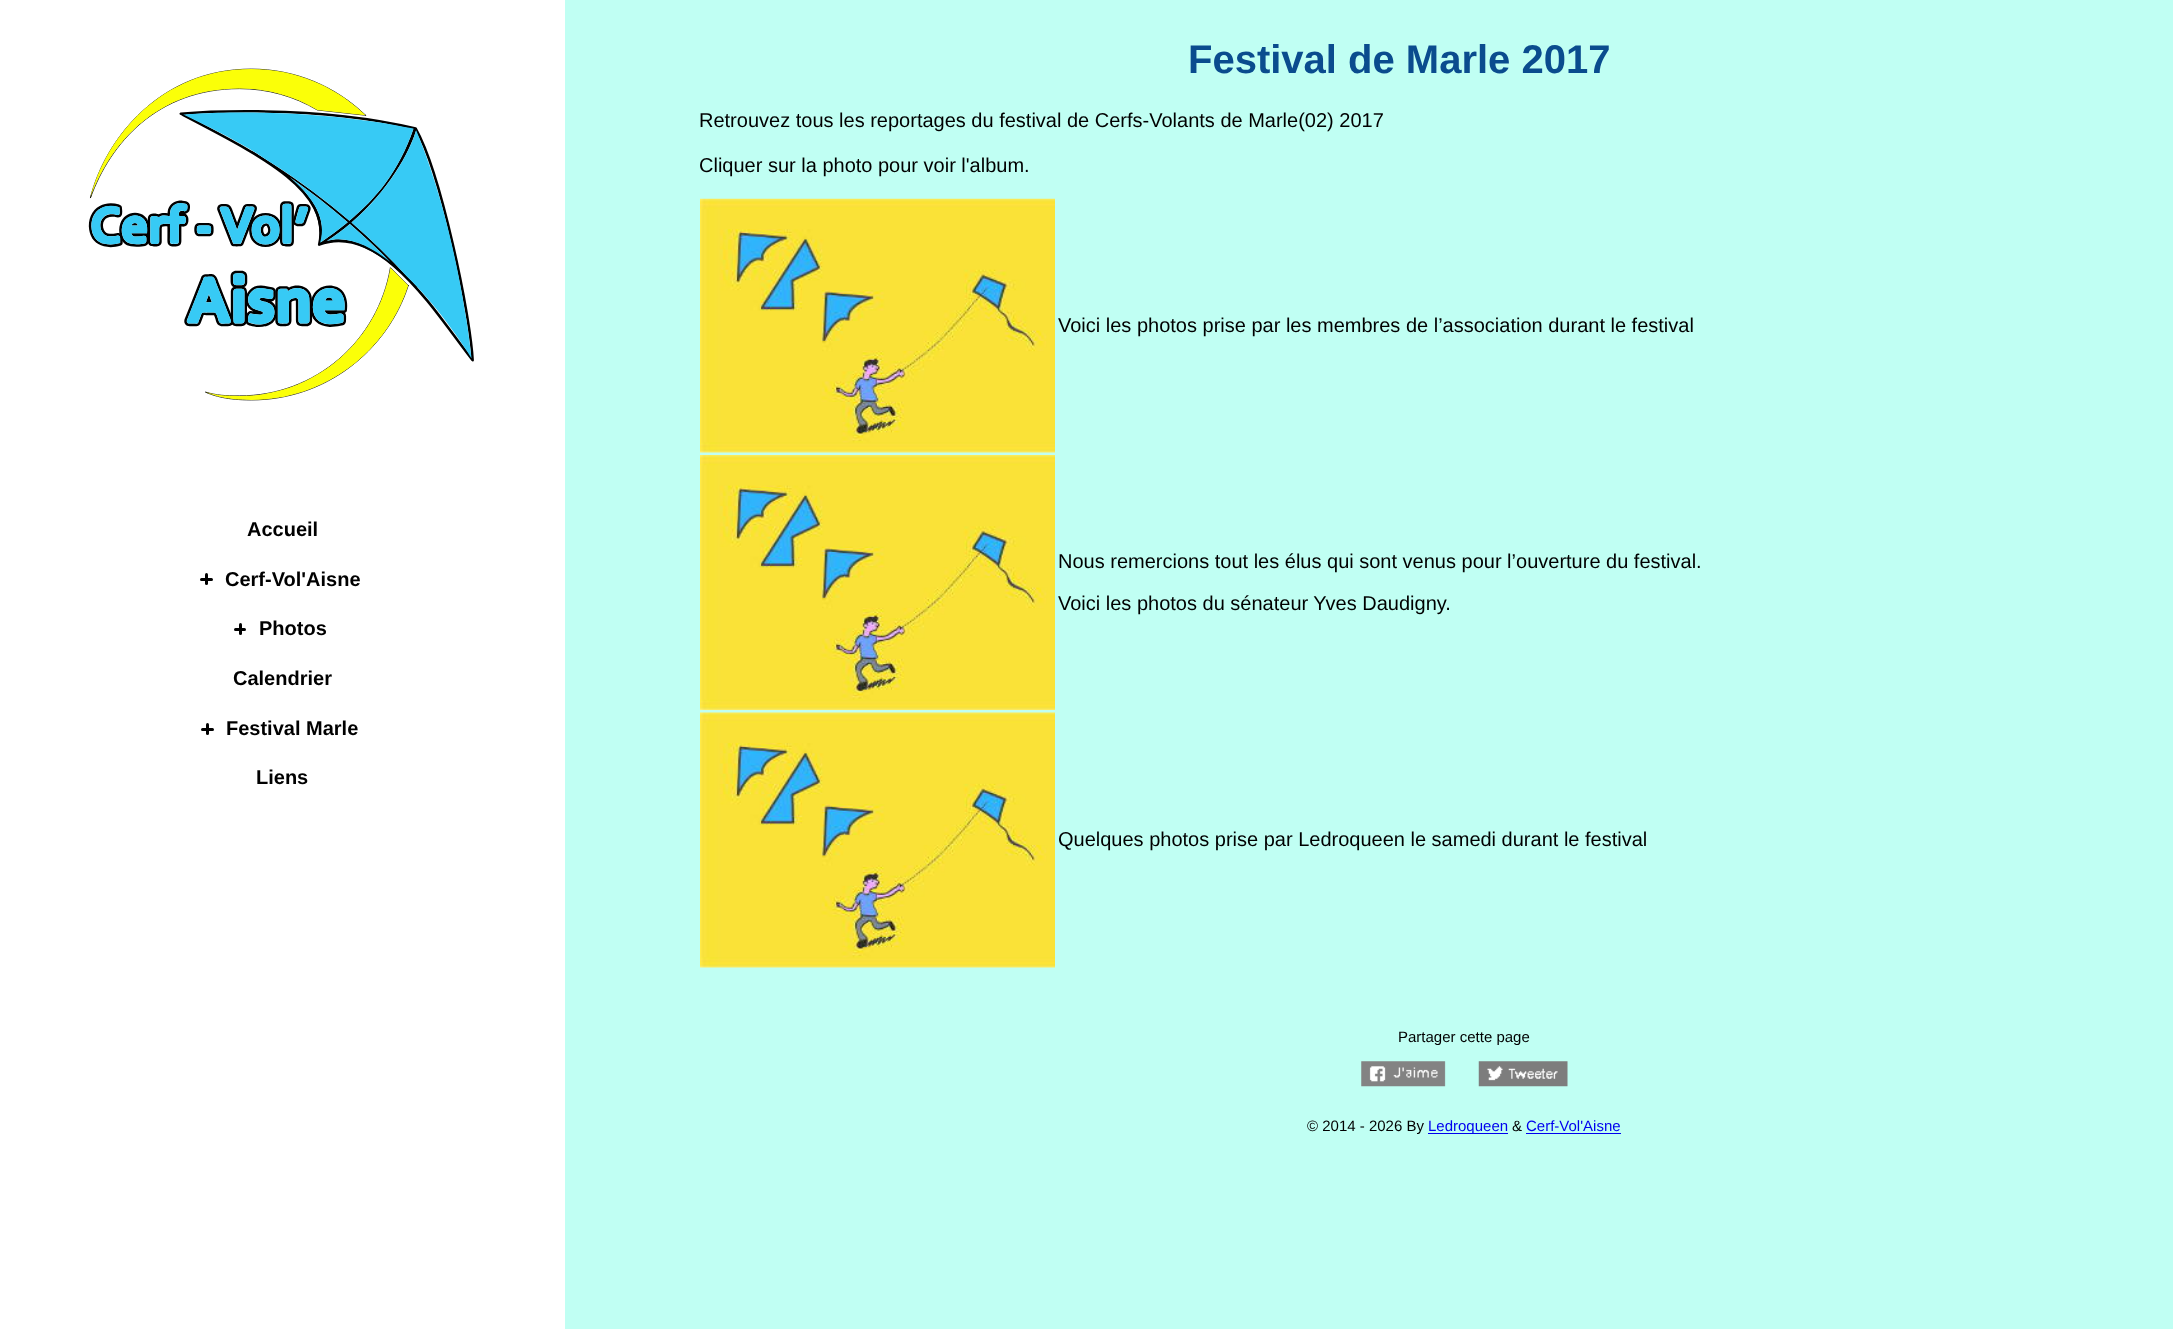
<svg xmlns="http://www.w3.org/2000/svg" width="2173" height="1329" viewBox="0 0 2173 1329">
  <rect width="100%" height="100%" fill="#c0fff3"/>
  <rect x="0" y="0" width="565" height="1329" fill="#ffffff"/>
  <image x="88" y="68" width="386" height="333" href="img1.png"/>
  <text x="247" y="536" font-family="Liberation Sans" font-size="20" font-weight="bold" fill="#000000">Accueil</text>
  <rect x="205" y="573" width="3" height="12" rx="1.5" fill="#000000"/>
  <text x="225" y="586" font-family="Liberation Sans" font-size="20" font-weight="bold" fill="#000000">Cerf-Vol'Aisne</text>
  <rect x="200" y="578" width="13" height="3" rx="1.5" fill="#000000"/>
  <rect x="239" y="623" width="3" height="12" rx="1.5" fill="#000000"/>
  <text x="259" y="635" font-family="Liberation Sans" font-size="20" font-weight="bold" fill="#000000">Photos</text>
  <rect x="234" y="628" width="12" height="3" rx="1.5" fill="#000000"/>
  <text x="233" y="685" font-family="Liberation Sans" font-size="20" font-weight="bold" fill="#000000">Calendrier</text>
  <rect x="206" y="723" width="3" height="12" rx="1.5" fill="#000000"/>
  <text x="226" y="735" font-family="Liberation Sans" font-size="20" font-weight="bold" fill="#000000">Festival Marle</text>
  <rect x="201" y="728" width="13" height="3" rx="1.5" fill="#000000"/>
  <text x="256" y="784" font-family="Liberation Sans" font-size="20" font-weight="bold" fill="#000000">Liens</text>
  <text x="1188" y="73" font-family="Liberation Sans" font-size="40" font-weight="bold" fill="#0a4c8e">Festival de Marle 2017</text>
  <text x="699" y="127" font-family="Liberation Sans" font-size="20" fill="#000000">Retrouvez tous les reportages du festival de Cerfs-Volants de Marle(02) 2017</text>
  <text x="699" y="172" font-family="Liberation Sans" font-size="20" fill="#000000">Cliquer sur la photo pour voir l'album.</text>
  <image x="700" y="198" width="355" height="255" href="img2.png"/>
  <text x="1058" y="332" font-family="Liberation Sans" font-size="20" fill="#000000">Voici les photos prise par les membres de l’association durant le festival</text>
  <image x="700" y="455" width="355" height="255" href="img3.png"/>
  <text x="1058" y="568" font-family="Liberation Sans" font-size="20" fill="#000000">Nous remercions tout les élus qui sont venus pour l’ouverture du festival.</text>
  <text x="1058" y="610" font-family="Liberation Sans" font-size="20" fill="#000000">Voici les photos du sénateur Yves Daudigny.</text>
  <image x="700" y="712" width="355" height="256" href="img4.png"/>
  <text x="1058" y="846" font-family="Liberation Sans" font-size="20" fill="#000000">Quelques photos prise par Ledroqueen le samedi durant le festival</text>
  <text x="1398" y="1042" font-family="Liberation Sans" font-size="15" fill="#000000">Partager cette page</text>
  <image x="1361" y="1061" width="207" height="26" href="img5.png"/>
  <text x="1307" y="1131" font-family="Liberation Sans" font-size="15" fill="#000000">© 2014 - 2026 By</text>
  <rect x="1428" y="1133" width="80" height="1" fill="#0000ee"/>
  <text x="1428" y="1131" font-family="Liberation Sans" font-size="15" fill="#0000ee">Ledroqueen</text>
  <text x="1512" y="1131" font-family="Liberation Sans" font-size="15" fill="#000000">&amp;</text>
  <text x="1526" y="1131" font-family="Liberation Sans" font-size="15" fill="#0000ee">Cerf-Vol'Aisne</text>
  <rect x="1526" y="1133" width="95" height="1" fill="#0000ee"/>
</svg>
